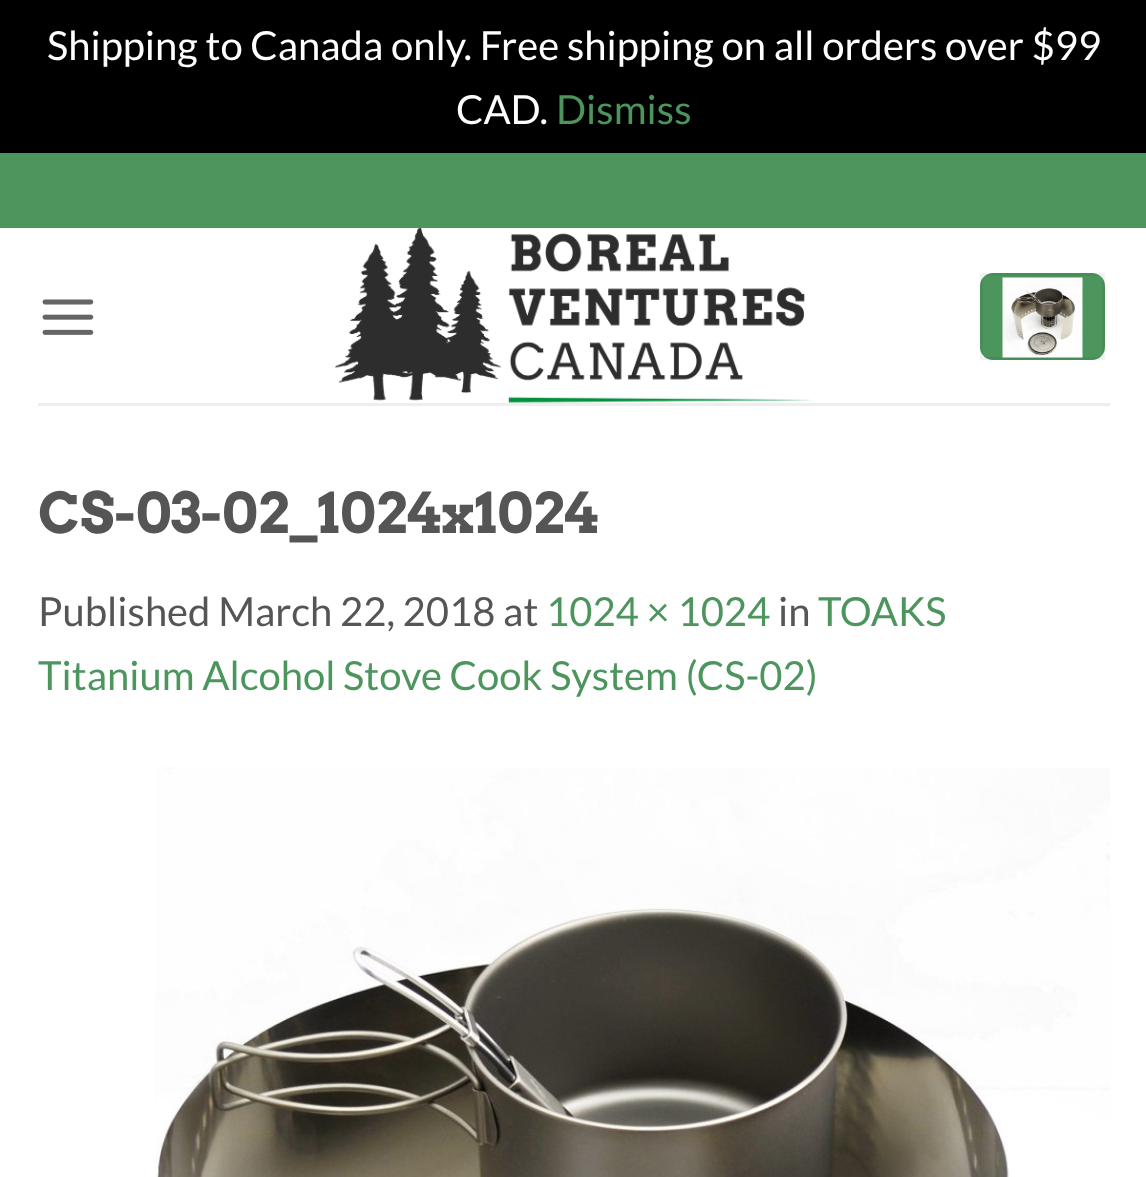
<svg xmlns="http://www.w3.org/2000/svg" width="1146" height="1177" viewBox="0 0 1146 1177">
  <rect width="100%" height="100%" fill="#000000"/>
  <text x="47" y="60" font-family="Lato" font-size="40" fill="#ffffff">Shipping to Canada only. Free shipping on all orders over $99</text>
  <text x="456" y="124" font-family="Lato" font-size="40" fill="#ffffff">CAD.</text>
  <text x="556" y="124" font-family="Lato" font-size="40" fill="#4c955d">Dismiss</text>
  <rect x="0" y="228" width="1146" height="949" fill="#ffffff"/>
  <rect x="0" y="153" width="1146" height="75" fill="#4c955d"/>
  <image x="42" y="299" width="52" height="36" href="img1.png"/>
  <image x="335" y="228" width="477" height="175" href="img2.png"/>
  <rect x="980" y="273" width="125" height="87" rx="13" fill="#4c955d"/>
  <rect x="981.5" y="274.5" width="122" height="84" fill="none" stroke="#000000" stroke-opacity="0.05" stroke-width="3"/>
  <image x="1002" y="277" width="81" height="81" href="img3.png"/>
  <rect x="38" y="403" width="1072" height="3" fill="#eeeeee"/>
  <text x="38" y="533" font-family="Arvo" font-size="56" font-weight="bold" fill="#555555">CS-03-02_1024x1024</text>
  <text x="38" y="626" font-family="Lato" font-size="40" fill="#555555">Published March 22, 2018 at</text>
  <text x="546" y="626" font-family="Lato" font-size="40" fill="#4c955d">1024 × 1024</text>
  <text x="778" y="626" font-family="Lato" font-size="40" fill="#555555">in</text>
  <text x="818" y="626" font-family="Lato" font-size="40" fill="#4c955d">TOAKS</text>
  <text x="38" y="690" font-family="Lato" font-size="40" fill="#4c955d">Titanium Alcohol Stove Cook System (CS-02)</text>
  <image x="155" y="767" width="955" height="410" href="img4.png"/>
</svg>
